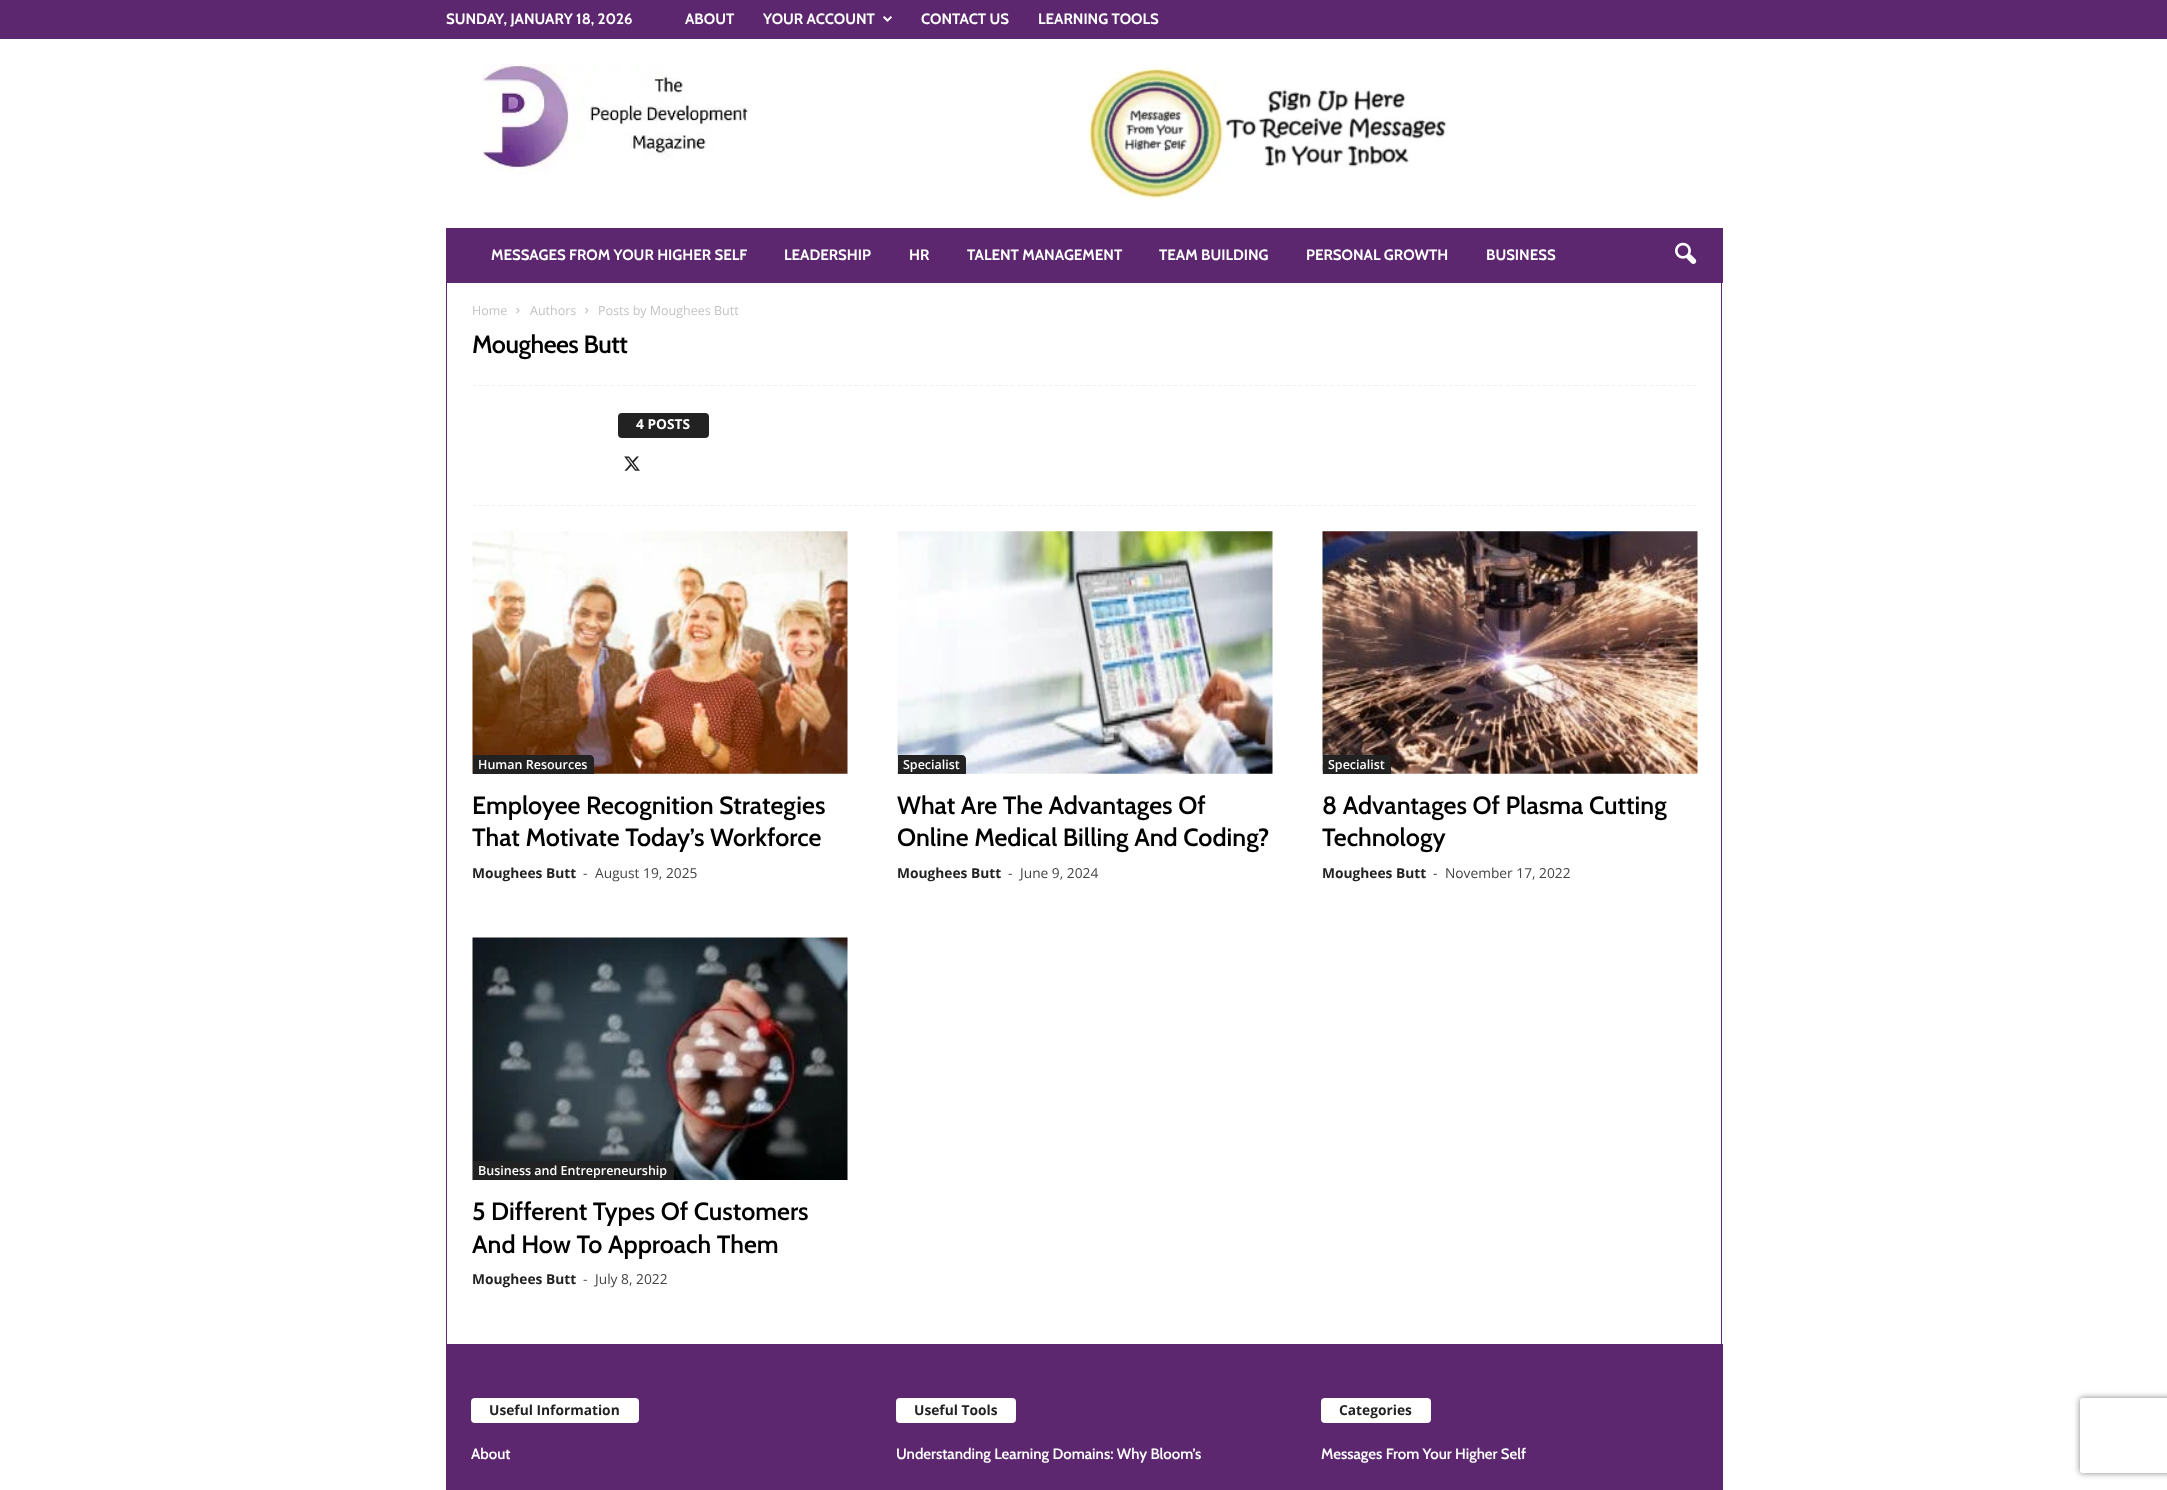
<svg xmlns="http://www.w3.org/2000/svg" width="2167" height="1490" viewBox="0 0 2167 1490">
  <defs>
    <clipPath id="clip1"><path d="M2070 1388H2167V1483H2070ZM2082.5 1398H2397.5C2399 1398 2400 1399 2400 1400.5V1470.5C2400 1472 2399 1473 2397.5 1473H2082.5C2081 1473 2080 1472 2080 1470.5V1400.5C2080 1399 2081 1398 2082.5 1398Z" clip-rule="evenodd"/></clipPath>
    <filter id="blur1" x="-50%" y="-200%" width="200%" height="500%"><feGaussianBlur stdDeviation="3"/></filter>
  </defs>
  <rect width="100%" height="100%" fill="#ffffff"/>
  <rect x="0" y="0" width="2167" height="39" fill="#5c276f"/>
  <text x="446" y="24" font-family="Cabin" font-size="15" font-weight="bold" fill="#ffffff">SUNDAY, JANUARY 18, 2026</text>
  <text x="685" y="24" font-family="Cabin" font-size="15" font-weight="bold" fill="#ffffff">ABOUT</text>
  <text x="763" y="24" font-family="Cabin" font-size="15" font-weight="bold" fill="#ffffff">YOUR ACCOUNT</text>
  <image x="883" y="16" width="9" height="6" href="img1.png"/>
  <text x="921" y="24" font-family="Cabin" font-size="15" font-weight="bold" fill="#ffffff">CONTACT US</text>
  <text x="1038" y="24" font-family="Cabin" font-size="15" font-weight="bold" fill="#ffffff">LEARNING TOOLS</text>
  <image x="482" y="64" width="267" height="110" href="img2.png"/>
  <image x="1088" y="68" width="362" height="131" href="img3.png"/>
  <rect x="446" y="228" width="1277" height="55" fill="#5c276f"/>
  <text x="491" y="260" font-family="Cabin" font-size="15" font-weight="bold" fill="#ffffff">MESSAGES FROM YOUR HIGHER SELF</text>
  <text x="784" y="260" font-family="Cabin" font-size="15" font-weight="bold" fill="#ffffff">LEADERSHIP</text>
  <text x="909" y="260" font-family="Cabin" font-size="15" font-weight="bold" fill="#ffffff">HR</text>
  <text x="967" y="260" font-family="Cabin" font-size="15" font-weight="bold" fill="#ffffff">TALENT MANAGEMENT</text>
  <text x="1159" y="260" font-family="Cabin" font-size="15" font-weight="bold" fill="#ffffff">TEAM BUILDING</text>
  <text x="1306" y="260" font-family="Cabin" font-size="15" font-weight="bold" fill="#ffffff">PERSONAL GROWTH</text>
  <text x="1486" y="260" font-family="Cabin" font-size="15" font-weight="bold" fill="#ffffff">BUSINESS</text>
  <image x="1675" y="242" width="22" height="22" href="img4.png"/>
  <rect x="446" y="283" width="1" height="1061" fill="#5c276f"/>
  <text x="472" y="315" font-family="Open Sans" font-size="12.5" fill="#c3c3c3">Home</text>
  <image x="516" y="307" width="4" height="7" href="img5.png"/>
  <text x="530" y="315" font-family="Open Sans" font-size="12.5" fill="#c3c3c3">Authors</text>
  <image x="585" y="307" width="4" height="7" href="img6.png"/>
  <text x="598" y="315" font-family="Open Sans" font-size="12.5" fill="#c3c3c3">Posts by Moughees Butt</text>
  <text x="472" y="353" font-family="Cabin" font-size="25" font-weight="600" letter-spacing="-0.5" fill="#000000">Moughees Butt</text>
  <path d="M472.5 385.5H1697.5" fill="none" stroke="#f1f1f1" stroke-width="1.2" stroke-dasharray="3.75 2.51"/>
  <path d="M472.5 505.5H1697.5" fill="none" stroke="#f1f1f1" stroke-width="1.2" stroke-dasharray="3.75 2.51"/>
  <rect x="618" y="413" width="91" height="25" rx="4" fill="#222222"/>
  <text x="636" y="429" font-family="Open Sans" font-size="13.75" font-weight="bold" fill="#ffffff">4 POSTS</text>
  <image x="624" y="456" width="16" height="15" href="img7.png"/>
  <image x="472" y="531" width="376" height="243" href="img8.png"/>
  <path d="M473 755H590C592 755 594 757 594 759V774H473Z" fill="#222222"/>
  <text x="478" y="769" font-family="Open Sans" font-size="12.5" font-weight="600" fill="#ffffff">Human Resources</text>
  <text x="472" y="814" font-family="Cabin" font-size="25" font-weight="600" fill="#000000">Employee Recognition Strategies</text>
  <text x="472" y="846" font-family="Cabin" font-size="25" font-weight="600" fill="#000000">That Motivate Today’s Workforce</text>
  <text x="472" y="878" font-family="Open Sans" font-size="13.75" font-weight="bold" fill="#222222">Moughees Butt</text>
  <text x="583" y="878" font-family="Open Sans" font-size="13.75" fill="#444444">-</text>
  <text x="595" y="878" font-family="Open Sans" font-size="13.75" fill="#444444">August 19, 2025</text>
  <image x="897" y="531" width="376" height="243" href="img9.png"/>
  <path d="M898 755H962C964 755 966 757 966 759V774H898Z" fill="#222222"/>
  <text x="903" y="769" font-family="Open Sans" font-size="12.5" font-weight="600" fill="#ffffff">Specialist</text>
  <text x="897" y="814" font-family="Cabin" font-size="25" font-weight="600" fill="#000000">What Are The Advantages Of</text>
  <text x="897" y="846" font-family="Cabin" font-size="25" font-weight="600" fill="#000000">Online Medical Billing And Coding?</text>
  <text x="897" y="878" font-family="Open Sans" font-size="13.75" font-weight="bold" fill="#222222">Moughees Butt</text>
  <text x="1008" y="878" font-family="Open Sans" font-size="13.75" fill="#444444">-</text>
  <text x="1020" y="878" font-family="Open Sans" font-size="13.75" fill="#444444">June 9, 2024</text>
  <image x="1322" y="531" width="376" height="243" href="img10.png"/>
  <path d="M1323 755H1387C1389 755 1391 757 1391 759V774H1323Z" fill="#222222"/>
  <text x="1328" y="769" font-family="Open Sans" font-size="12.5" font-weight="600" fill="#ffffff">Specialist</text>
  <text x="1322" y="814" font-family="Cabin" font-size="25" font-weight="600" fill="#000000">8 Advantages Of Plasma Cutting</text>
  <text x="1322" y="846" font-family="Cabin" font-size="25" font-weight="600" fill="#000000">Technology</text>
  <text x="1322" y="878" font-family="Open Sans" font-size="13.75" font-weight="bold" fill="#222222">Moughees Butt</text>
  <text x="1433" y="878" font-family="Open Sans" font-size="13.75" fill="#444444">-</text>
  <text x="1445" y="878" font-family="Open Sans" font-size="13.75" fill="#444444">November 17, 2022</text>
  <image x="472" y="937" width="376" height="243" href="img11.png"/>
  <path d="M473 1161H670C672 1161 674 1163 674 1165V1180H473Z" fill="#222222"/>
  <text x="478" y="1175" font-family="Open Sans" font-size="12.5" font-weight="600" fill="#ffffff">Business and Entrepreneurship</text>
  <text x="472" y="1220" font-family="Cabin" font-size="25" font-weight="600" fill="#000000">5 Different Types Of Customers</text>
  <text x="472" y="1253" font-family="Cabin" font-size="25" font-weight="600" fill="#000000">And How To Approach Them</text>
  <text x="472" y="1284" font-family="Open Sans" font-size="13.75" font-weight="bold" fill="#222222">Moughees Butt</text>
  <text x="583" y="1284" font-family="Open Sans" font-size="13.75" fill="#444444">-</text>
  <text x="595" y="1284" font-family="Open Sans" font-size="13.75" fill="#444444">July 8, 2022</text>
  <rect x="1721" y="283" width="1" height="1061" fill="#5c276f"/>
  <rect x="446" y="1344" width="1277" height="146" fill="#5c276f"/>
  <rect x="471" y="1398" width="168" height="25" rx="4" fill="#ffffff"/>
  <text x="489" y="1415" font-family="Open Sans" font-size="13.75" font-weight="bold" fill="#222222">Useful Information</text>
  <text x="471" y="1459" font-family="Cabin" font-size="15" font-weight="600" fill="#ffffff">About</text>
  <rect x="896" y="1398" width="120" height="25" rx="4" fill="#ffffff"/>
  <text x="914" y="1415" font-family="Open Sans" font-size="13.75" font-weight="bold" fill="#222222">Useful Tools</text>
  <text x="896" y="1459" font-family="Cabin" font-size="15" font-weight="600" fill="#ffffff">Understanding Learning Domains: Why Bloom’s</text>
  <rect x="1321" y="1398" width="110" height="25" rx="4" fill="#ffffff"/>
  <text x="1339" y="1415" font-family="Open Sans" font-size="13.75" font-weight="bold" fill="#222222">Categories</text>
  <text x="1321" y="1459" font-family="Cabin" font-size="15" font-weight="600" fill="#ffffff">Messages From Your Higher Self</text>
  <g clip-path="url(#clip1)">
    <rect x="2080" y="1398" width="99" height="75" rx="2.5" fill="#808080" filter="url(#blur1)"/>
  </g>
</svg>
